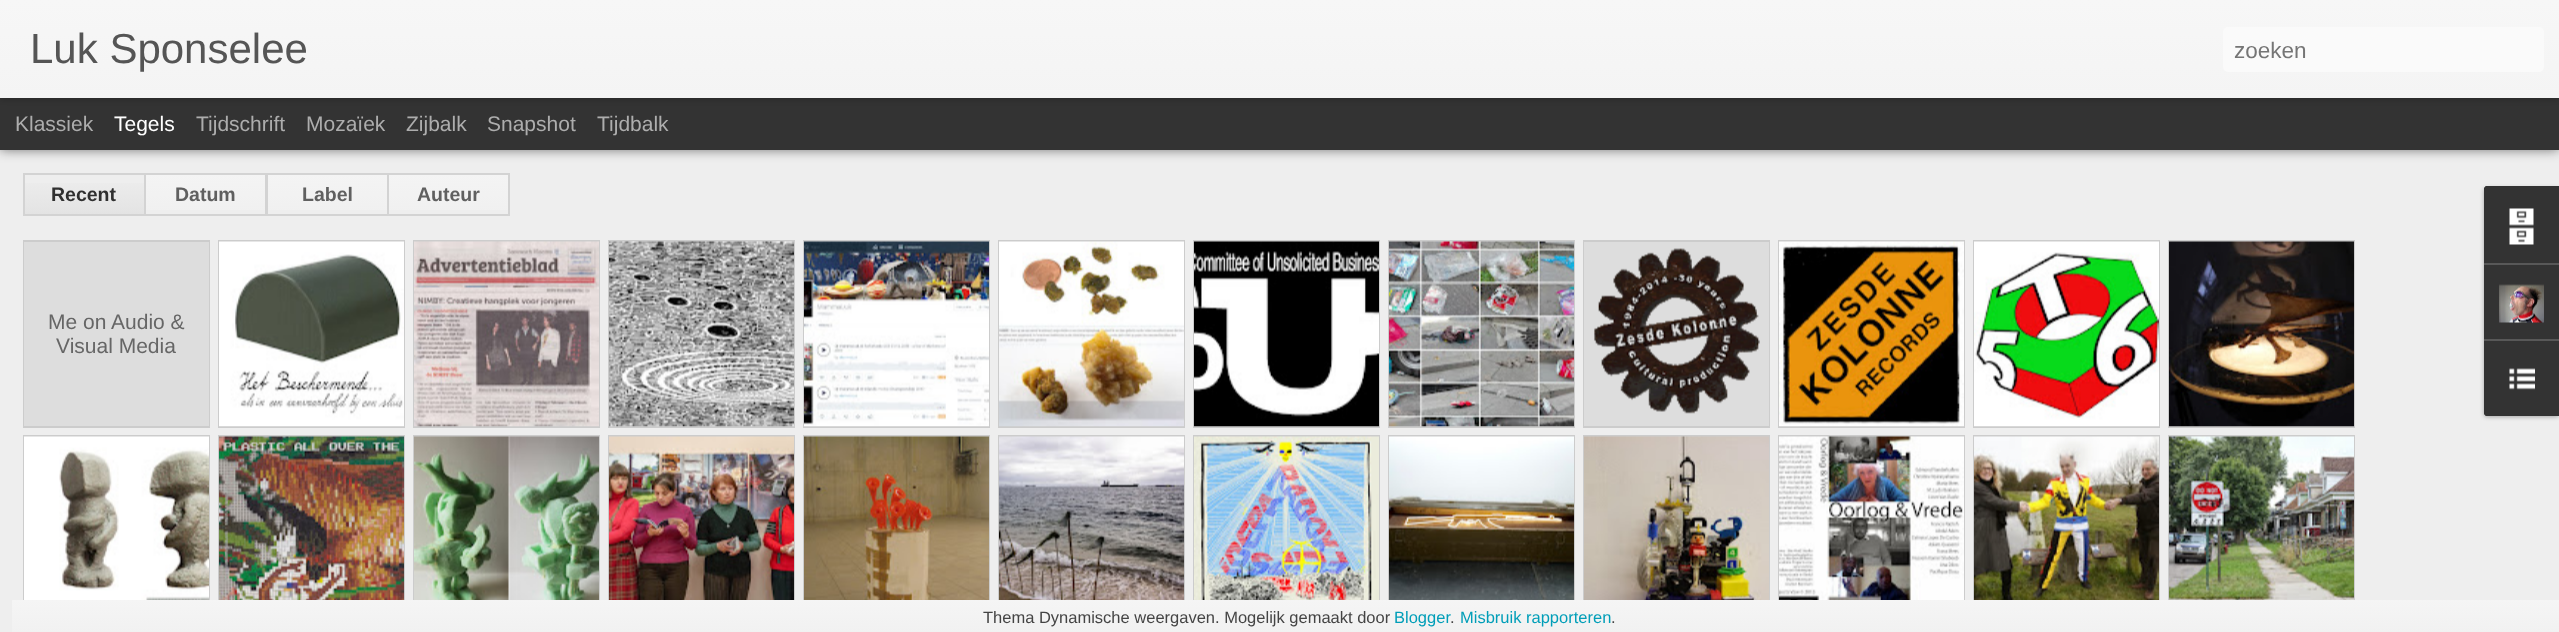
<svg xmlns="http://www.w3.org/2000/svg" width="2559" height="632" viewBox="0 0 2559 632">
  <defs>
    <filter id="blur1" x="-50%" y="-200%" width="200%" height="500%"><feGaussianBlur stdDeviation="6"/></filter>
    <filter id="blur2" x="-50%" y="-200%" width="200%" height="500%"><feGaussianBlur stdDeviation="4"/></filter>
    <linearGradient id="g1" gradientUnits="userSpaceOnUse" x1="0" y1="0" x2="0" y2="98"><stop offset="0" stop-color="#f7f7f7"/><stop offset="1" stop-color="#f4f4f4"/></linearGradient>
    <linearGradient id="g2" gradientUnits="userSpaceOnUse" x1="84" y1="174" x2="84" y2="215"><stop offset="0" stop-color="#eeeeee"/><stop offset="1" stop-color="#e3e3e3"/></linearGradient>
    <linearGradient id="g3" gradientUnits="userSpaceOnUse" x1="206" y1="174" x2="206" y2="215"><stop offset="0" stop-color="#f4f4f4"/><stop offset="1" stop-color="#f0f0f0"/></linearGradient>
    <linearGradient id="g4" gradientUnits="userSpaceOnUse" x1="327" y1="174" x2="327" y2="215"><stop offset="0" stop-color="#f4f4f4"/><stop offset="1" stop-color="#f0f0f0"/></linearGradient>
    <linearGradient id="g5" gradientUnits="userSpaceOnUse" x1="449" y1="174" x2="449" y2="215"><stop offset="0" stop-color="#f4f4f4"/><stop offset="1" stop-color="#f0f0f0"/></linearGradient>
    <filter id="blur3" x="-50%" y="-200%" width="200%" height="500%"><feGaussianBlur stdDeviation="2"/></filter>
    <linearGradient id="g6" gradientUnits="userSpaceOnUse" x1="1299" y1="600" x2="1299" y2="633"><stop offset="0" stop-color="#f5f5f5"/><stop offset="1" stop-color="#f1f1f1"/></linearGradient>
  </defs>
  <rect width="100%" height="100%" fill="#eeeeee"/>
  <rect x="0" y="98" width="2559" height="52" fill="#000000" fill-opacity="0.5" filter="url(#blur1)"/>
  <rect x="0" y="98" width="2559" height="52" fill="#333333"/>
  <rect x="0" y="0" width="2559" height="98" fill="#000000" fill-opacity="0.3" filter="url(#blur2)"/>
  <rect x="0" y="0" width="2559" height="98" fill="url(#g1)"/>
  <text x="30" y="63" font-family="Liberation Sans" font-size="42" fill="#555555">Luk Sponselee</text>
  <rect x="2223" y="27" width="321" height="45" rx="5" fill="#fafafa"/>
  <text x="2234" y="58" font-family="Liberation Sans" font-size="22.5" fill="#757575">zoeken</text>
  <text x="15" y="131" font-family="Liberation Sans" font-size="21" fill="#adadad">Klassiek</text>
  <text x="114" y="131" font-family="Liberation Sans" font-size="21" fill="#ffffff">Tegels</text>
  <text x="196" y="131" font-family="Liberation Sans" font-size="21" fill="#adadad">Tijdschrift</text>
  <text x="306" y="131" font-family="Liberation Sans" font-size="21" fill="#adadad">Mozaïek</text>
  <text x="406" y="131" font-family="Liberation Sans" font-size="21" fill="#adadad">Zijbalk</text>
  <text x="487" y="131" font-family="Liberation Sans" font-size="21" fill="#adadad">Snapshot</text>
  <text x="597" y="131" font-family="Liberation Sans" font-size="21" fill="#adadad">Tijdbalk</text>
  <rect x="25" y="183" width="119" height="31" fill="url(#g2)"/>
  <rect x="24" y="174" width="121" height="41" fill="none" stroke="#d3d3d3" stroke-width="2"/>
  <text x="51" y="201" font-family="Liberation Sans" font-size="19.5" font-weight="bold" fill="#303030">Recent</text>
  <rect x="146" y="175" width="119" height="35" fill="url(#g3)"/>
  <rect x="145" y="174" width="121" height="41" fill="none" stroke="#d3d3d3" stroke-width="2"/>
  <text x="175" y="201" font-family="Liberation Sans" font-size="19.5" font-weight="bold" fill="#606060">Datum</text>
  <rect x="268" y="175" width="119" height="35" fill="url(#g4)"/>
  <rect x="267" y="174" width="121" height="41" fill="none" stroke="#d3d3d3" stroke-width="2"/>
  <text x="302" y="201" font-family="Liberation Sans" font-size="19.5" font-weight="bold" fill="#606060">Label</text>
  <rect x="389" y="175" width="119" height="35" fill="url(#g5)"/>
  <rect x="388" y="174" width="121" height="41" fill="none" stroke="#d3d3d3" stroke-width="2"/>
  <text x="417" y="201" font-family="Liberation Sans" font-size="19.5" font-weight="bold" fill="#606060">Auteur</text>
  <rect x="24" y="241" width="185" height="186" fill="none" stroke="#cccccc" stroke-width="2"/>
  <rect x="24" y="242" width="185" height="184" fill="#dddddd"/>
  <text x="48" y="329" font-family="Liberation Sans" font-size="21" fill="#666666">Me on Audio &amp;</text>
  <text x="56" y="353" font-family="Liberation Sans" font-size="21" fill="#666666">Visual Media</text>
  <rect x="219" y="241" width="185" height="186" fill="none" stroke="#cccccc" stroke-width="2"/>
  <image x="219" y="241" width="185" height="186" href="img1.png"/>
  <rect x="414" y="241" width="185" height="186" fill="none" stroke="#cccccc" stroke-width="2"/>
  <image x="414" y="241" width="185" height="186" href="img2.png"/>
  <rect x="609" y="241" width="185" height="186" fill="none" stroke="#cccccc" stroke-width="2"/>
  <image x="609" y="241" width="185" height="186" href="img3.png"/>
  <rect x="804" y="241" width="185" height="186" fill="none" stroke="#cccccc" stroke-width="2"/>
  <image x="804" y="241" width="185" height="186" href="img4.png"/>
  <rect x="999" y="241" width="185" height="186" fill="none" stroke="#cccccc" stroke-width="2"/>
  <image x="999" y="241" width="185" height="186" href="img5.png"/>
  <rect x="1194" y="241" width="185" height="186" fill="none" stroke="#cccccc" stroke-width="2"/>
  <image x="1194" y="241" width="185" height="186" href="img6.png"/>
  <rect x="1389" y="241" width="185" height="186" fill="none" stroke="#cccccc" stroke-width="2"/>
  <image x="1389" y="241" width="185" height="186" href="img7.png"/>
  <rect x="1584" y="241" width="185" height="186" fill="none" stroke="#cccccc" stroke-width="2"/>
  <rect x="1584" y="242" width="185" height="184" fill="#dddddd"/>
  <image x="1594" y="248" width="166" height="166" href="img8.png"/>
  <rect x="1779" y="241" width="185" height="186" fill="none" stroke="#cccccc" stroke-width="2"/>
  <image x="1779" y="241" width="185" height="186" href="img9.png"/>
  <rect x="1974" y="241" width="185" height="186" fill="none" stroke="#cccccc" stroke-width="2"/>
  <image x="1974" y="241" width="185" height="186" href="img10.png"/>
  <rect x="2169" y="241" width="185" height="186" fill="none" stroke="#cccccc" stroke-width="2"/>
  <image x="2169" y="241" width="185" height="186" href="img11.png"/>
  <rect x="24" y="436" width="185" height="186" fill="none" stroke="#cccccc" stroke-width="2"/>
  <image x="24" y="436" width="185" height="164" href="img12.png"/>
  <rect x="219" y="436" width="185" height="186" fill="none" stroke="#cccccc" stroke-width="2"/>
  <image x="219" y="436" width="185" height="164" href="img13.png"/>
  <rect x="414" y="436" width="185" height="186" fill="none" stroke="#cccccc" stroke-width="2"/>
  <image x="414" y="436" width="185" height="164" href="img14.png"/>
  <rect x="609" y="436" width="185" height="186" fill="none" stroke="#cccccc" stroke-width="2"/>
  <image x="609" y="436" width="185" height="164" href="img15.png"/>
  <rect x="804" y="436" width="185" height="186" fill="none" stroke="#cccccc" stroke-width="2"/>
  <image x="804" y="436" width="185" height="164" href="img16.png"/>
  <rect x="999" y="436" width="185" height="186" fill="none" stroke="#cccccc" stroke-width="2"/>
  <image x="999" y="436" width="185" height="164" href="img17.png"/>
  <rect x="1194" y="436" width="185" height="186" fill="none" stroke="#cccccc" stroke-width="2"/>
  <image x="1194" y="436" width="185" height="164" href="img18.png"/>
  <rect x="1389" y="436" width="185" height="186" fill="none" stroke="#cccccc" stroke-width="2"/>
  <image x="1389" y="436" width="185" height="164" href="img19.png"/>
  <rect x="1584" y="436" width="185" height="186" fill="none" stroke="#cccccc" stroke-width="2"/>
  <image x="1584" y="436" width="185" height="164" href="img20.png"/>
  <rect x="1779" y="436" width="185" height="186" fill="none" stroke="#cccccc" stroke-width="2"/>
  <image x="1779" y="436" width="185" height="164" href="img21.png"/>
  <rect x="1974" y="436" width="185" height="186" fill="none" stroke="#cccccc" stroke-width="2"/>
  <image x="1974" y="436" width="185" height="164" href="img22.png"/>
  <rect x="2169" y="436" width="185" height="186" fill="none" stroke="#cccccc" stroke-width="2"/>
  <image x="2169" y="436" width="185" height="164" href="img23.png"/>
  <rect x="2484" y="188" width="75" height="229" rx="3" fill="#000000" fill-opacity="0.3" filter="url(#blur3)"/>
  <path d="M2487 186H2559V416H2487C2485.5 416 2484 414.5 2484 413V189C2484 187.5 2485.5 186 2487 186Z" fill="#333333"/>
  <path d="M2487 186H2559V263H2484V189C2484 187.5 2485.5 186 2487 186Z" fill="#333333"/>
  <image x="2509" y="208" width="25" height="37" href="img24.png"/>
  <rect x="2484" y="263" width="75" height="2" fill="#585858"/>
  <image x="2499" y="284" width="45" height="39" href="img25.png"/>
  <path d="M2484 339H2559V416H2487C2485.5 416 2484 414.5 2484 413Z" fill="#333333"/>
  <rect x="2484" y="339" width="75" height="2" fill="#585858"/>
  <image x="2509" y="368" width="26" height="22" href="img26.png"/>
  <rect x="12" y="600" width="2547" height="32" fill="url(#g6)"/>
  <text x="983" y="623" font-family="Liberation Sans" font-size="16.5" fill="#444444">Thema Dynamische weergaven. Mogelijk gemaakt door</text>
  <text x="1394" y="623" font-family="Liberation Sans" font-size="16.5" fill="#009eb8">Blogger</text>
  <text x="1450" y="623" font-family="Liberation Sans" font-size="16.5" fill="#444444">.</text>
  <text x="1460" y="623" font-family="Liberation Sans" font-size="16.5" fill="#009eb8">Misbruik rapporteren</text>
  <text x="1611" y="623" font-family="Liberation Sans" font-size="16.5" fill="#444444">.</text>
</svg>
